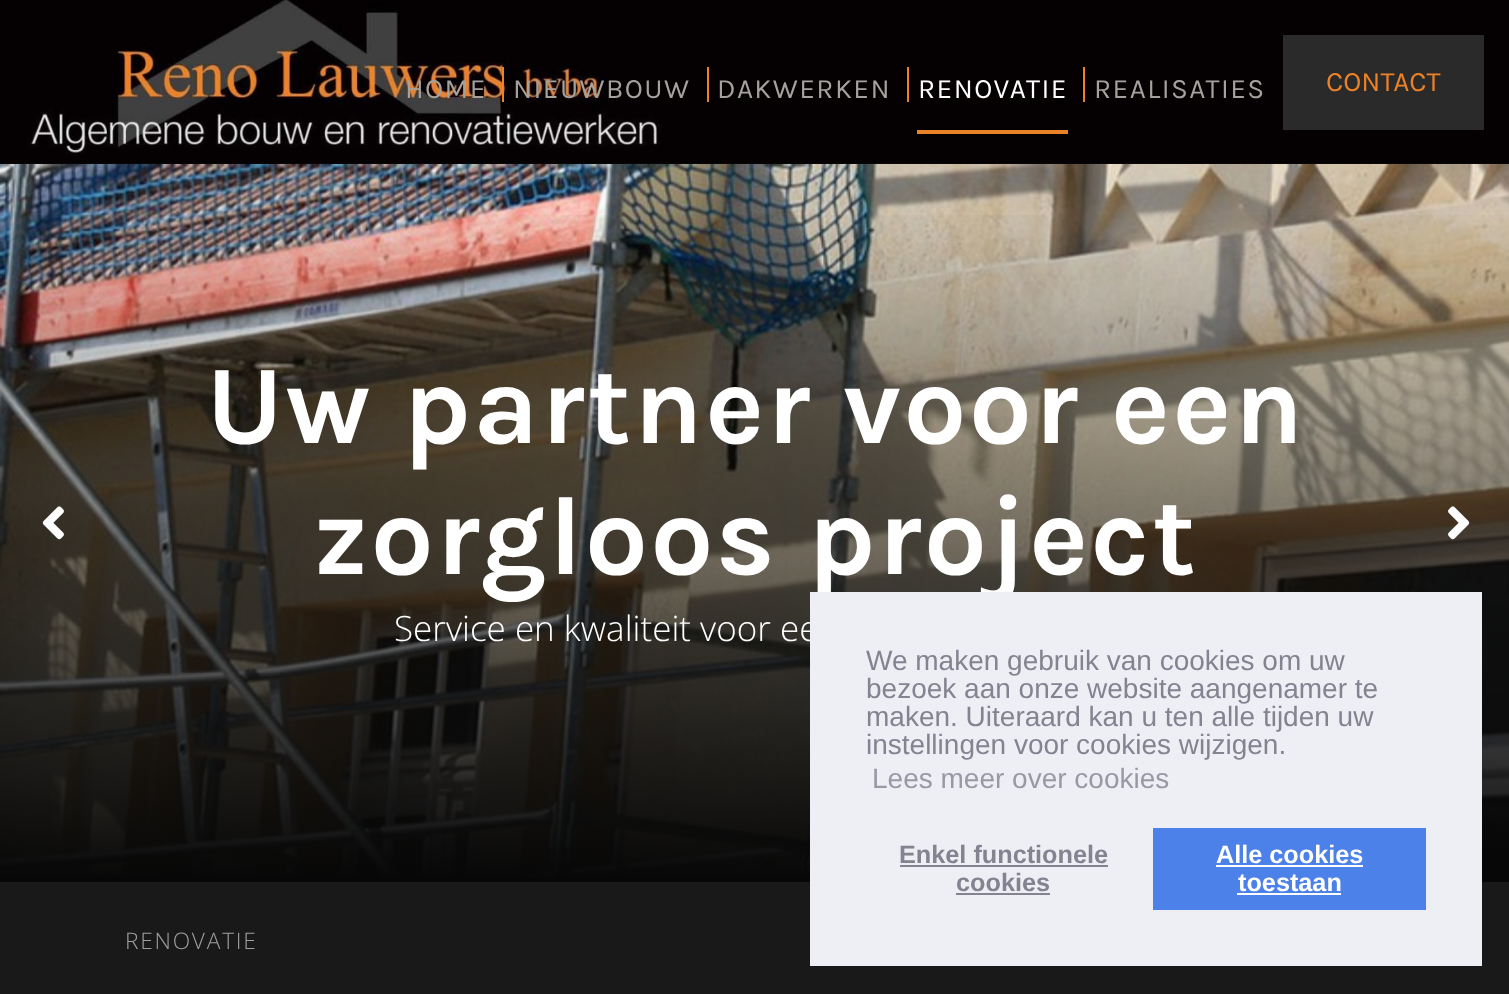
<svg xmlns="http://www.w3.org/2000/svg" width="1509" height="994" viewBox="0 0 1509 994">
  <defs>
    <linearGradient id="g1" gradientUnits="userSpaceOnUse" x1="755" y1="164" x2="755" y2="882"><stop offset="0.05" stop-color="#070707" stop-opacity="0"/><stop offset="1" stop-color="#070707"/></linearGradient>
  </defs>
  <rect width="100%" height="100%" fill="#070707"/>
  <rect x="0" y="0" width="1509" height="163" fill="#050102"/>
  <image x="26" y="0" width="634" height="154" href="img1.png"/>
  <text x="405" y="98" font-family="Karla" font-size="28" letter-spacing="1.4" fill="#a5a29e">HOME</text>
  <rect x="502" y="67" width="2" height="35" fill="#ec8227"/>
  <text x="513" y="98" font-family="Karla" font-size="28" letter-spacing="1.4" fill="#a5a29e">NIEUWBOUW</text>
  <rect x="707" y="67" width="2" height="35" fill="#ec8227"/>
  <text x="717" y="98" font-family="Karla" font-size="28" letter-spacing="1.4" fill="#a5a29e">DAKWERKEN</text>
  <rect x="907" y="67" width="2" height="35" fill="#ec8227"/>
  <text x="918" y="98" font-family="Karla" font-size="28" letter-spacing="1.4" fill="#ffffff">RENOVATIE</text>
  <rect x="917" y="130" width="151" height="4" fill="#ec8227"/>
  <rect x="1083" y="67" width="2" height="35" fill="#ec8227"/>
  <text x="1094" y="98" font-family="Karla" font-size="28" letter-spacing="1.4" fill="#a5a29e">REALISATIES</text>
  <rect x="1283" y="35" width="201" height="95" fill="#2b2a2a"/>
  <text x="1326" y="91" font-family="Karla" font-size="28" fill="#ec8227">CONTACT</text>
  <image x="0" y="164" width="1509" height="714" href="img2.png"/>
  <rect x="0" y="215" width="1509" height="663" fill="url(#g1)"/>
  <text x="206" y="443" font-family="Karla" font-size="112" font-weight="bold" letter-spacing="2.1" fill="#ffffff">Uw partner voor een</text>
  <text x="313" y="574" font-family="Karla" font-size="112" font-weight="bold" letter-spacing="2.1" fill="#ffffff">zorgloos project</text>
  <text x="394" y="641" font-family="Open Sans" font-size="35" font-weight="300" fill="#ffffff">Service en kwaliteit voor ee</text>
  <image x="42" y="506" width="22" height="34" href="img3.png"/>
  <image x="1448" y="506" width="22" height="34" href="img4.png"/>
  <rect x="0" y="882" width="1509" height="112" fill="#1a1919"/>
  <rect x="810" y="592" width="672" height="374" fill="#edeff5"/>
  <text x="866" y="670" font-family="Liberation Sans" font-size="28" fill="#838391">We maken gebruik van cookies om uw</text>
  <text x="866" y="698" font-family="Liberation Sans" font-size="28" fill="#838391">bezoek aan onze website aangenamer te</text>
  <text x="866" y="726" font-family="Liberation Sans" font-size="28" fill="#838391">maken. Uiteraard kan u ten alle tijden uw</text>
  <text x="866" y="754" font-family="Liberation Sans" font-size="28" fill="#838391">instellingen voor cookies wijzigen.</text>
  <text x="872" y="788" font-family="Liberation Sans" font-size="28" fill="#9899a5">Lees meer over cookies</text>
  <text x="899" y="863" font-family="Liberation Sans" font-size="25.25" font-weight="bold" fill="#838391">Enkel functionele</text>
  <rect x="900" y="865" width="208" height="2" fill="#838391"/>
  <text x="956" y="891" font-family="Liberation Sans" font-size="25.25" font-weight="bold" fill="#838391">cookies</text>
  <rect x="956" y="893" width="94" height="2" fill="#838391"/>
  <rect x="1153" y="828" width="273" height="82" fill="#4b81e8"/>
  <text x="1216" y="863" font-family="Liberation Sans" font-size="25.25" font-weight="bold" fill="#ffffff">Alle cookies</text>
  <rect x="1216" y="865" width="147" height="2" fill="#ffffff"/>
  <text x="1238" y="891" font-family="Liberation Sans" font-size="25.25" font-weight="bold" fill="#ffffff">toestaan</text>
  <rect x="1237" y="893" width="104" height="2" fill="#ffffff"/>
  <text x="125" y="949" font-family="Open Sans" font-size="22.75" font-weight="300" letter-spacing="1.75" fill="#9e9e9d">RENOVATIE</text>
</svg>
